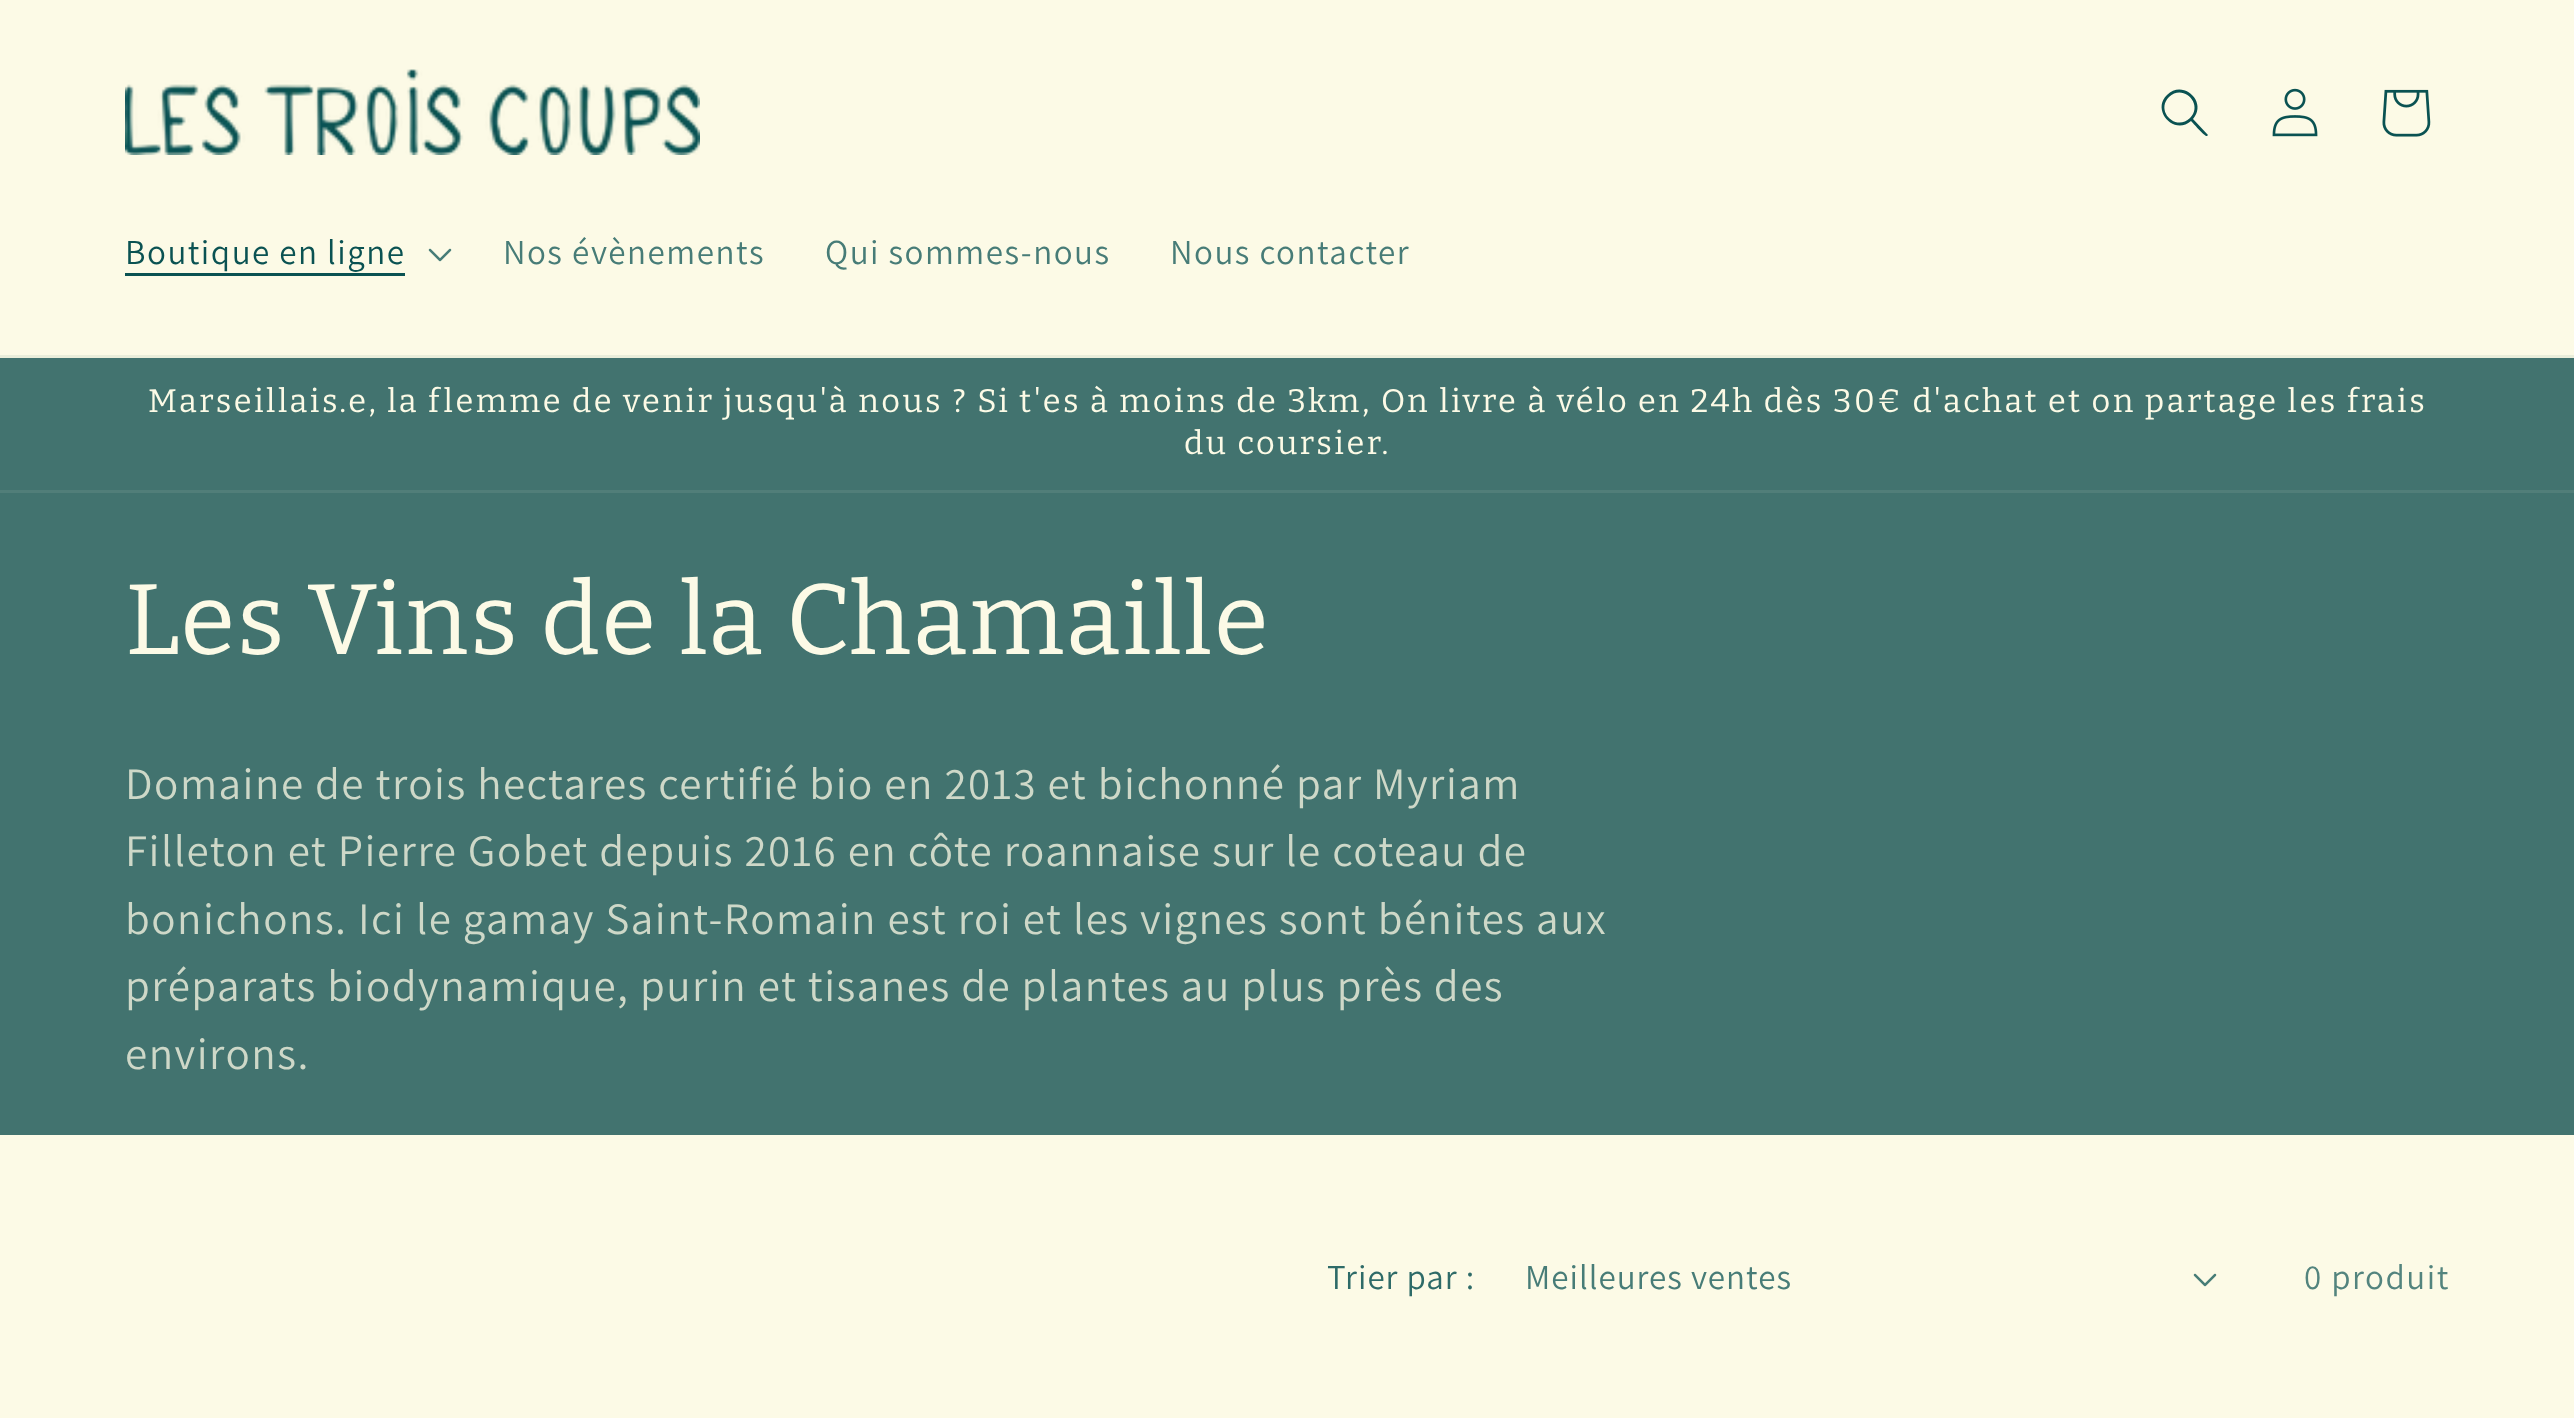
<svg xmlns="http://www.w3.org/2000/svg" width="2574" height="1418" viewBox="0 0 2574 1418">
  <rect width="100%" height="100%" fill="#42736f"/>
  <rect x="0" y="0" width="2574" height="355" fill="#fcfae6"/>
  <rect x="0" y="355" width="2574" height="3" fill="#e9edda"/>
  <image x="125" y="69" width="575" height="86" href="img1.png"/>
  <path d="M2190 118C2176 132 2155 111 2169 97C2183 83 2204 104 2190 118ZM2191 121C2174 136 2151 110 2167 95C2183 79 2208 102 2193 119L2208 135L2207 136C2205 137 2193 123 2191 121Z" fill="#0a5252" fill-rule="evenodd"/>
  <image x="2272" y="88" width="46" height="49" href="img2.png"/>
  <image x="2382" y="89" width="49" height="48" href="img3.png"/>
  <text x="125" y="264" font-family="Assistant" font-size="35" letter-spacing="1.5" fill="#0a5252">Boutique en ligne</text>
  <rect x="125" y="273" width="280" height="3" fill="#0a5252"/>
  <image x="428" y="248" width="24" height="14" href="img4.png"/>
  <text x="503" y="264" font-family="Assistant" font-size="35" letter-spacing="1.5" fill="#477c77">Nos évènements</text>
  <text x="825" y="264" font-family="Assistant" font-size="35" letter-spacing="1.5" fill="#477c77">Qui sommes-nous</text>
  <text x="1170" y="264" font-family="Assistant" font-size="35" letter-spacing="1.5" fill="#477c77">Nous contacter</text>
  <rect x="0" y="490" width="2574" height="3" fill="#517e79"/>
  <text x="148" y="412" font-family="Bitter" font-size="32.5" letter-spacing="2.5" fill="#fcfae6">Marseillais.e, la flemme de venir jusqu'à nous ? Si t'es à moins de 3km, On livre à vélo en 24h dès 30€ d'achat et on partage les frais</text>
  <text x="1184" y="454" font-family="Bitter" font-size="32.5" letter-spacing="2.5" fill="#fcfae6">du coursier.</text>
  <text x="125" y="654" font-family="Bitter" font-size="100" letter-spacing="1.5" fill="#fcfae6">Les Vins de la Chamaille</text>
  <text x="125" y="799" font-family="Assistant" font-size="45" letter-spacing="1.5" fill="#ced8c8">Domaine de trois hectares certifié bio en 2013 et bichonné par Myriam</text>
  <text x="125" y="866" font-family="Assistant" font-size="45" letter-spacing="1.5" fill="#ced8c8">Filleton et Pierre Gobet depuis 2016 en côte roannaise sur le coteau de</text>
  <text x="125" y="934" font-family="Assistant" font-size="45" letter-spacing="1.5" fill="#ced8c8">bonichons. Ici le gamay Saint-Romain est roi et les vignes sont bénites aux</text>
  <text x="125" y="1001" font-family="Assistant" font-size="45" letter-spacing="1.5" fill="#ced8c8">préparats biodynamique, purin et tisanes de plantes au plus près des</text>
  <text x="125" y="1069" font-family="Assistant" font-size="45" letter-spacing="1.5" fill="#ced8c8">environs.</text>
  <rect x="0" y="1135" width="2574" height="283" fill="#fcfae6"/>
  <text x="1327" y="1289" font-family="Assistant" font-size="35" letter-spacing="1" fill="#2e6b68">Trier par :</text>
  <text x="1525" y="1289" font-family="Assistant" font-size="35" letter-spacing="1" fill="#477c77">Meilleures ventes</text>
  <image x="2193" y="1273" width="24" height="14" href="img4.png"/>
  <text x="2304" y="1289" font-family="Assistant" font-size="35" letter-spacing="1.5" fill="#53847e">0 produit</text>
</svg>
